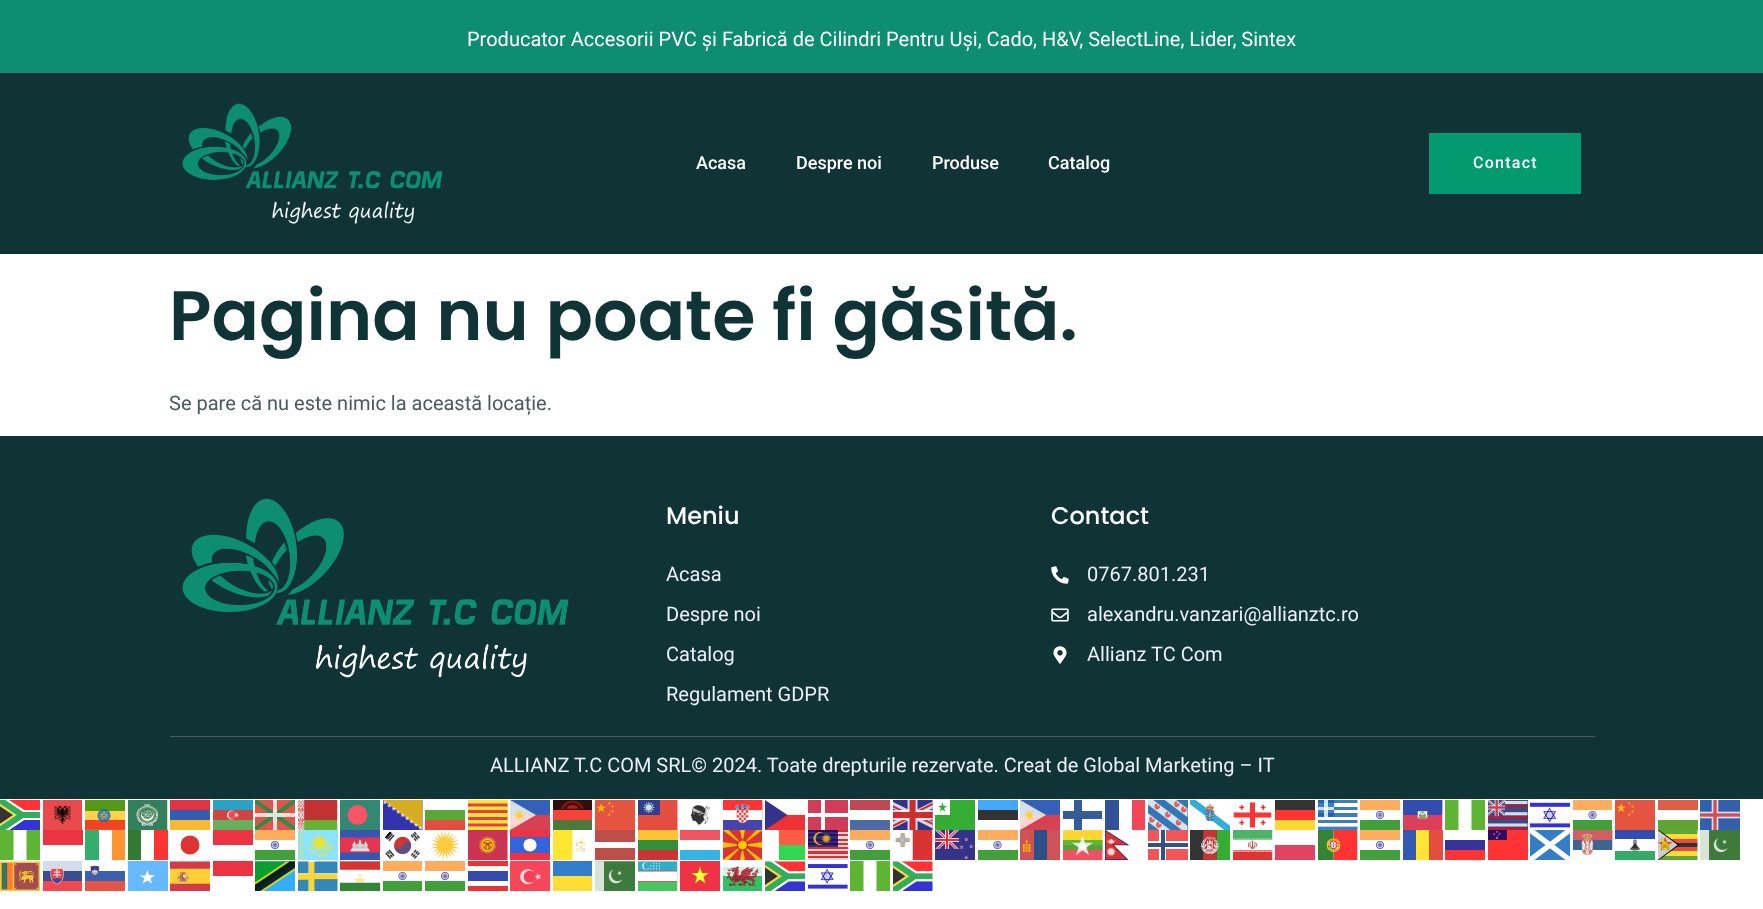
<svg xmlns="http://www.w3.org/2000/svg" width="1763" height="909" viewBox="0 0 1763 909">
  <defs>
    <clipPath id="clip1"><rect x="468" y="800" width="40" height="30"/></clipPath>
    <clipPath id="clip2"><rect x="1530" y="830" width="40" height="30"/></clipPath>
  </defs>
  <rect width="100%" height="100%" fill="#ffffff"/>
  <rect x="0" y="0" width="1763" height="73" fill="#0d8e72"/>
  <text x="467" y="46" font-family="Roboto" font-size="20" fill="#ffffff">Producator Accesorii PVC și Fabrică de Cilindri Pentru Uși, Cado, H&amp;V, SelectLine, Lider, Sintex</text>
  <rect x="0" y="73" width="1763" height="181" fill="#103336"/>
  <image x="182" y="103" width="261" height="121" href="img1.png"/>
  <text x="696" y="169" font-family="Roboto" font-size="18" font-weight="500" fill="#ffffff">Acasa</text>
  <text x="796" y="169" font-family="Roboto" font-size="18" font-weight="500" fill="#ffffff">Despre noi</text>
  <text x="932" y="169" font-family="Roboto" font-size="18" font-weight="500" fill="#ffffff">Produse</text>
  <text x="1048" y="169" font-family="Roboto" font-size="18" font-weight="500" fill="#ffffff">Catalog</text>
  <rect x="1429" y="133" width="152" height="61" fill="#049a6f"/>
  <text x="1473" y="168" font-family="Roboto" font-size="16" font-weight="500" letter-spacing="1.25" fill="#ffffff">Contact</text>
  <text x="169" y="340" font-family="Poppins" font-size="70" font-weight="600" fill="#103336">Pagina nu poate fi găsită.</text>
  <text x="169" y="410" font-family="Roboto" font-size="20" fill="#4a595a">Se pare că nu este nimic la această locație.</text>
  <rect x="0" y="436" width="1763" height="363" fill="#103336"/>
  <image x="182" y="498" width="387" height="180" href="img2.png"/>
  <text x="666" y="524" font-family="Poppins" font-size="24" font-weight="500" fill="#ffffff">Meniu</text>
  <text x="666" y="581" font-family="Roboto" font-size="20" fill="#eaf0f5">Acasa</text>
  <text x="666" y="621" font-family="Roboto" font-size="20" fill="#eaf0f5">Despre noi</text>
  <text x="666" y="661" font-family="Roboto" font-size="20" fill="#eaf0f5">Catalog</text>
  <text x="666" y="701" font-family="Roboto" font-size="20" fill="#eaf0f5">Regulament GDPR</text>
  <text x="1051" y="524" font-family="Poppins" font-size="24" font-weight="500" fill="#ffffff">Contact</text>
  <image x="1051" y="566" width="18" height="18" href="img3.png"/>
  <text x="1087" y="581" font-family="Roboto" font-size="20" fill="#eaf0f5">0767.801.231</text>
  <image x="1051" y="608" width="18" height="14" href="img4.png"/>
  <text x="1087" y="621" font-family="Roboto" font-size="20" fill="#eaf0f5">alexandru.vanzari@allianztc.ro</text>
  <image x="1053" y="646" width="14" height="18" href="img5.png"/>
  <text x="1087" y="661" font-family="Roboto" font-size="20" fill="#eaf0f5">Allianz TC Com</text>
  <rect x="170" y="736" width="1425" height="1" fill="#4a595a"/>
  <text x="490" y="772" font-family="Roboto" font-size="20" fill="#eaf0f5">ALLIANZ T.C COM SRL© 2024. Toate drepturile rezervate. Creat de Global Marketing – IT</text>
  <image x="0" y="800" width="40" height="30" href="img6.png"/>
  <image x="43" y="800" width="39" height="30" href="img7.png"/>
  <image x="85" y="800" width="40" height="30" href="img8.png"/>
  <image x="128" y="800" width="40" height="30" href="img9.png"/>
  <rect x="170" y="800" width="40" height="10" fill="#e13341"/>
  <image x="213" y="800" width="40" height="30" href="img10.png"/>
  <image x="255" y="800" width="40" height="30" href="img11.png"/>
  <image x="298" y="800" width="40" height="30" href="img12.png"/>
  <rect x="340" y="800" width="40" height="30" fill="#338871"/>
  <image x="383" y="800" width="40" height="30" href="img13.png"/>
  <rect x="468" y="800" width="40" height="30" fill="#fde43a"/>
  <image x="510" y="800" width="40" height="30" href="img14.png"/>
  <image x="553" y="800" width="39" height="30" href="img15.png"/>
  <image x="595" y="800" width="40" height="30" href="img16.png"/>
  <image x="638" y="800" width="40" height="30" href="img17.png"/>
  <image x="723" y="800" width="40" height="30" href="img18.png"/>
  <rect x="765" y="815" width="40" height="15" fill="#ed3333"/>
  <path d="M765 800L787.5 815L765 830Z" fill="#33338c" fill-rule="evenodd"/>
  <rect x="808" y="800" width="40" height="30" fill="#d13d59"/>
  <rect x="170" y="810" width="40" height="10" fill="#335cb3"/>
  <circle cx="357.5" cy="815" r="10" fill="#f65567"/>
  <rect x="425" y="810" width="40" height="10" fill="#5aa933"/>
  <g clip-path="url(#clip1)">
    <path d="M467.5 805H507.5M507.5 811.5H467.5M467.5 818.5H507.5M507.5 825H467.5" fill="none" stroke="#e14148" stroke-width="3.1"/>
  </g>
  <image x="690" y="805" width="20" height="20" href="img19.png"/>
  <rect x="821" y="800" width="4" height="30" fill="#ffffff"/>
  <rect x="850" y="800" width="40" height="10" fill="#be4953"/>
  <image x="893" y="800" width="40" height="30" href="img20.png"/>
  <image x="935" y="800" width="40" height="30" href="img21.png"/>
  <rect x="978" y="800" width="40" height="10" fill="#41a7ff"/>
  <image x="1020" y="800" width="40" height="30" href="img14.png"/>
  <rect x="1063" y="811" width="39" height="8" fill="#335d99"/>
  <rect x="1074" y="800" width="8" height="30" fill="#335d99"/>
  <rect x="1105" y="800" width="14" height="30" fill="#335199"/>
  <rect x="1132" y="800" width="13" height="30" fill="#f54659"/>
  <image x="1148" y="800" width="40" height="30" href="img22.png"/>
  <image x="1190" y="800" width="40" height="30" href="img23.png"/>
  <image x="1233" y="802" width="39" height="26" href="img24.png"/>
  <rect x="1275" y="800" width="40" height="10" fill="#333333"/>
  <image x="1318" y="800" width="40" height="30" href="img25.png"/>
  <image x="1360" y="800" width="40" height="30" href="img26.png"/>
  <image x="1403" y="800" width="40" height="30" href="img27.png"/>
  <path d="M1471.5 800H1485V830H1471.5ZM1445 800H1458.5V830H1445Z" fill="#5eb433" fill-rule="evenodd"/>
  <image x="1488" y="800" width="40" height="30" href="img28.png"/>
  <image x="1530" y="802" width="40" height="26" href="img29.png"/>
  <image x="1573" y="800" width="39" height="30" href="img30.png"/>
  <image x="1615" y="800" width="40" height="30" href="img16.png"/>
  <rect x="1658" y="800" width="40" height="10" fill="#dd5d45"/>
  <image x="1700" y="800" width="40" height="30" href="img31.png"/>
  <rect x="170" y="820" width="40" height="10" fill="#f5b933"/>
  <rect x="425" y="820" width="40" height="10" fill="#e54d40"/>
  <rect x="808" y="813" width="40" height="4" fill="#ffffff"/>
  <rect x="850" y="820" width="40" height="10" fill="#4d6ba2"/>
  <rect x="978" y="810" width="40" height="10" fill="#333333"/>
  <rect x="1275" y="810" width="40" height="10" fill="#ff3333"/>
  <rect x="1275" y="820" width="40" height="10" fill="#ffd633"/>
  <rect x="1658" y="820" width="40" height="10" fill="#60a433"/>
  <path d="M26.5 830H40V860H26.5ZM0 830H13.5V860H0Z" fill="#5eb433" fill-rule="evenodd"/>
  <rect x="43" y="830" width="40" height="15" fill="#ec3341"/>
  <rect x="85" y="830" width="14" height="30" fill="#33ae6d"/>
  <rect x="112" y="830" width="13" height="30" fill="#ff9433"/>
  <rect x="128" y="830" width="13" height="30" fill="#337933"/>
  <rect x="154" y="830" width="14" height="30" fill="#fd3333"/>
  <rect x="213" y="830" width="40" height="15" fill="#ec3341"/>
  <image x="255" y="830" width="40" height="30" href="img26.png"/>
  <image x="298" y="830" width="40" height="30" href="img32.png"/>
  <image x="340" y="830" width="40" height="30" href="img33.png"/>
  <image x="430" y="830" width="30" height="30" href="img34.png"/>
  <image x="468" y="830" width="40" height="30" href="img35.png"/>
  <rect x="510" y="830" width="40" height="30" fill="#ed3341"/>
  <image x="553" y="830" width="37" height="30" href="img36.png"/>
  <path d="M595 830H635V842H595ZM595 848H635V860H595Z" fill="#bc4f4a" fill-rule="evenodd"/>
  <rect x="638" y="830" width="40" height="10" fill="#ffc233"/>
  <rect x="680" y="830" width="40" height="10" fill="#f15461"/>
  <image x="723" y="830" width="40" height="30" href="img37.png"/>
  <rect x="779" y="830" width="26" height="15" fill="#ff5c47"/>
  <image x="808" y="830" width="40" height="30" href="img38.png"/>
  <image x="850" y="830" width="40" height="30" href="img26.png"/>
  <image x="895" y="830" width="38" height="30" href="img39.png"/>
  <image x="935" y="830" width="40" height="30" href="img40.png"/>
  <image x="978" y="830" width="40" height="30" href="img41.png"/>
  <image x="1020" y="830" width="40" height="30" href="img42.png"/>
  <image x="1063" y="830" width="40" height="30" href="img43.png"/>
  <image x="1105" y="830" width="25" height="30" href="img44.png"/>
  <rect x="1148" y="830" width="40" height="30" fill="#f25557"/>
  <rect x="1159" y="830" width="7" height="30" fill="#ffffff"/>
  <rect x="1148" y="841" width="40" height="8" fill="#ffffff"/>
  <rect x="1161" y="830" width="4" height="30" fill="#335386"/>
  <image x="1190" y="830" width="40" height="30" href="img45.png"/>
  <image x="1233" y="830" width="40" height="30" href="img46.png"/>
  <image x="1318" y="830" width="40" height="30" href="img47.png"/>
  <image x="1360" y="830" width="40" height="30" href="img26.png"/>
  <rect x="1403" y="830" width="13" height="30" fill="#335ab0"/>
  <rect x="1416" y="830" width="13" height="30" fill="#ffe533"/>
  <rect x="1429" y="830" width="14" height="30" fill="#e54d40"/>
  <image x="1488" y="830" width="40" height="30" href="img48.png"/>
  <rect x="1530" y="830" width="40" height="30" fill="#337ec6"/>
  <circle cx="190" cy="845" r="9.5" fill="#dc3333"/>
  <image x="385" y="831" width="35" height="28" href="img49.png"/>
  <rect x="510" y="837" width="40" height="16" fill="#3364db"/>
  <g clip-path="url(#clip2)">
    <path d="M1530 830L1570 860M1530 860L1570 830" fill="none" stroke="#ffffff" stroke-width="5.4"/>
  </g>
  <image x="1573" y="830" width="40" height="25" href="img50.png"/>
  <image x="1615" y="830" width="40" height="30" href="img51.png"/>
  <image x="1658" y="830" width="40" height="30" href="img52.png"/>
  <image x="1700" y="830" width="40" height="30" href="img53.png"/>
  <path d="M536.5 845C536.5 853.5 523.5 853.5 523.5 845C523.5 836.5 536.5 836.5 536.5 845Z" fill="#ffffff" fill-rule="evenodd"/>
  <rect x="638" y="840" width="40" height="10" fill="#338f39"/>
  <rect x="1445" y="840" width="40" height="10" fill="#343498"/>
  <rect x="638" y="850" width="40" height="10" fill="#cc3333"/>
  <rect x="680" y="850" width="40" height="10" fill="#33b4e5"/>
  <rect x="779" y="845" width="26" height="15" fill="#33d653"/>
  <rect x="1148" y="843" width="40" height="4" fill="#335386"/>
  <rect x="1275" y="845" width="40" height="15" fill="#e34363"/>
  <rect x="1445" y="850" width="40" height="10" fill="#fe3434"/>
  <image x="0" y="861" width="40" height="30" href="img54.png"/>
  <image x="43" y="861" width="39" height="30" href="img55.png"/>
  <image x="85" y="865" width="40" height="26" href="img56.png"/>
  <rect x="128" y="861" width="40" height="30" fill="#66b8ff"/>
  <image x="170" y="861" width="40" height="30" href="img57.png"/>
  <rect x="213" y="861" width="40" height="15" fill="#ec3341"/>
  <image x="255" y="861" width="40" height="30" href="img58.png"/>
  <image x="298" y="861" width="40" height="30" href="img59.png"/>
  <image x="340" y="861" width="40" height="30" href="img60.png"/>
  <image x="383" y="861" width="39" height="30" href="img61.png"/>
  <image x="425" y="861" width="40" height="30" href="img62.png"/>
  <rect x="468" y="871" width="40" height="10" fill="#3349ae"/>
  <path d="M468 861H508V866H468ZM468 886H508V891H468Z" fill="#ec3333" fill-rule="evenodd"/>
  <image x="510" y="861" width="40" height="30" href="img63.png"/>
  <rect x="553" y="861" width="39" height="15" fill="#337cc9"/>
  <image x="595" y="861" width="40" height="30" href="img64.png"/>
  <image x="638" y="861" width="40" height="30" href="img65.png"/>
  <rect x="680" y="861" width="40" height="30" fill="#f03344"/>
  <image x="765" y="861" width="40" height="30" href="img66.png"/>
  <image x="808" y="864" width="40" height="25" href="img67.png"/>
  <path d="M876.5 861H890V891H876.5ZM850 861H863.5V891H850Z" fill="#5eb433" fill-rule="evenodd"/>
  <image x="893" y="861" width="40" height="30" href="img68.png"/>
  <path d="M152 883.5L147.5 880.5L142.5 883.5L144.5 878.5L139.5 875.5H145.5L147.5 870L149 875H155L150.5 878.5Z" fill="#ffffff" fill-rule="evenodd"/>
  <rect x="553" y="876" width="39" height="15" fill="#ffdd33"/>
  <path d="M705.5 883.5L700 879.5L695 883.5L697 877L691.5 873H698L700 866.5L702 873H708.5L703.5 877Z" fill="#ffff33" fill-rule="evenodd"/>
  <image x="723" y="866" width="39" height="25" href="img69.png"/>
</svg>
